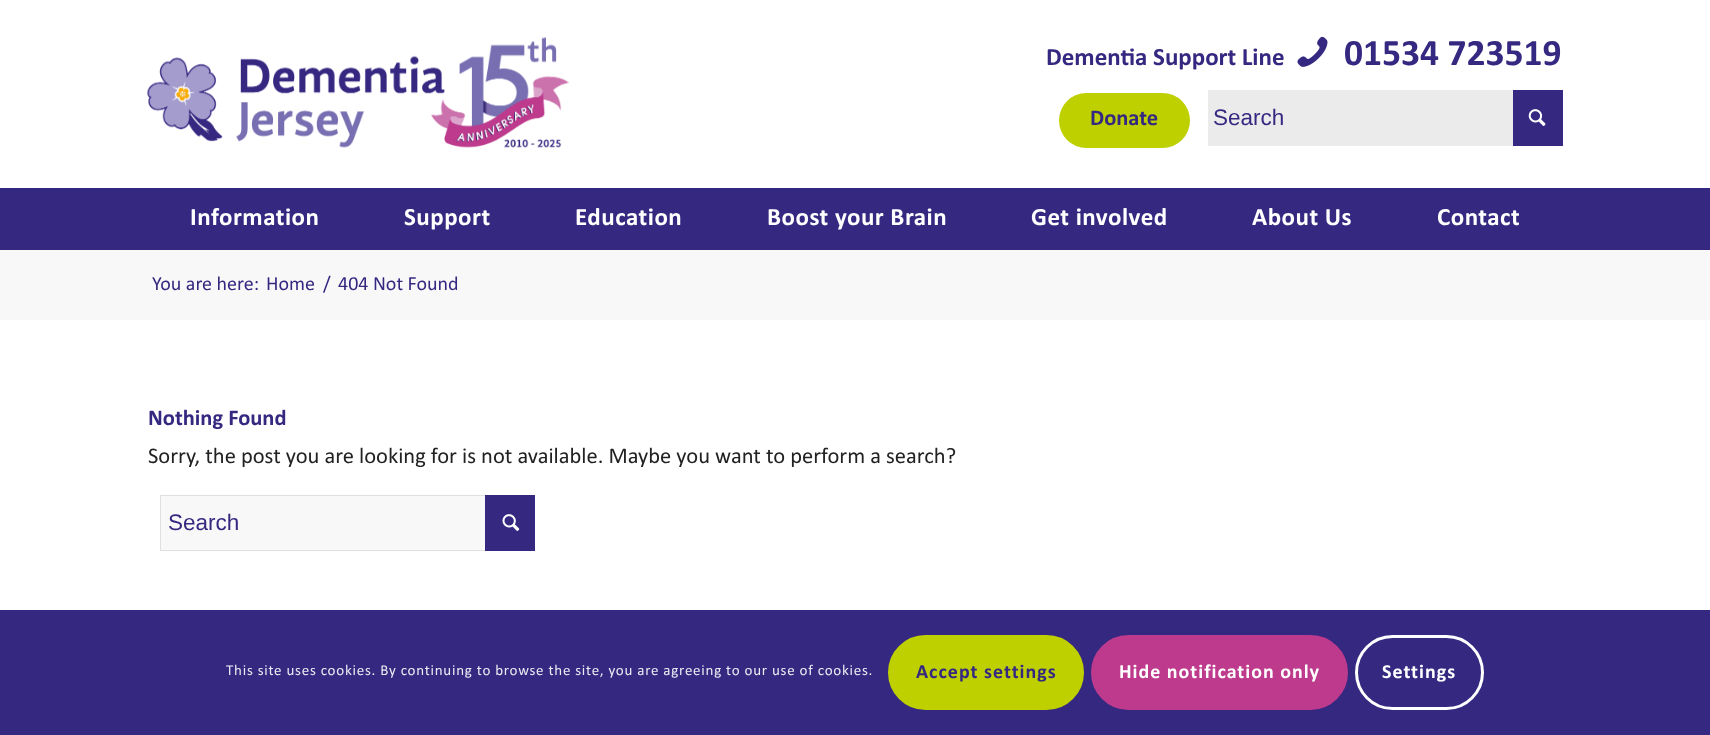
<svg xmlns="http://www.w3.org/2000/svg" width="1710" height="735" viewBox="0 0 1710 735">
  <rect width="100%" height="100%" fill="#ffffff"/>
  <image x="147" y="37" width="422" height="111" href="img1.png"/>
  <text x="1046" y="65" font-family="Calibri" font-size="25" font-weight="bold" fill="#352881">Dementia Support Line</text>
  <image x="1297" y="36" width="31" height="31" href="img2.png"/>
  <text x="1344" y="65" font-family="Calibri" font-size="37.5" font-weight="bold" fill="#352881">01534 723519</text>
  <rect x="1059" y="93" width="131" height="55" rx="27.5" fill="#bfd000"/>
  <text x="1090" y="125" font-family="Calibri" font-size="22.5" font-weight="bold" fill="#352881">Donate</text>
  <rect x="1208" y="90" width="305" height="56" fill="#ebebeb"/>
  <text x="1213" y="125" font-family="Liberation Sans" font-size="22.5" fill="#352881">Search</text>
  <rect x="1513" y="90" width="50" height="56" fill="#352881"/>
  <image x="1528" y="109" width="18" height="17" href="img3.png"/>
  <rect x="0" y="188" width="1710" height="62" fill="#352881"/>
  <text x="190" y="225" font-family="Calibri" font-size="25" font-weight="bold" letter-spacing="0.5" fill="#ffffff">Information</text>
  <text x="404" y="225" font-family="Calibri" font-size="25" font-weight="bold" letter-spacing="0.5" fill="#ffffff">Support</text>
  <text x="575" y="225" font-family="Calibri" font-size="25" font-weight="bold" letter-spacing="0.5" fill="#ffffff">Education</text>
  <text x="767" y="225" font-family="Calibri" font-size="25" font-weight="bold" letter-spacing="0.5" fill="#ffffff">Boost your Brain</text>
  <text x="1031" y="225" font-family="Calibri" font-size="25" font-weight="bold" letter-spacing="0.5" fill="#ffffff">Get involved</text>
  <text x="1252" y="225" font-family="Calibri" font-size="25" font-weight="bold" letter-spacing="0.5" fill="#ffffff">About Us</text>
  <text x="1437" y="225" font-family="Calibri" font-size="25" font-weight="bold" letter-spacing="0.5" fill="#ffffff">Contact</text>
  <rect x="0" y="250" width="1710" height="70" fill="#f8f8f8"/>
  <text x="152" y="290" font-family="Calibri" font-size="20" fill="#352881">You are here:</text>
  <text x="266" y="290" font-family="Calibri" font-size="20" fill="#352881">Home</text>
  <text x="323" y="290" font-family="Calibri" font-size="20" fill="#352881">/</text>
  <text x="338" y="290" font-family="Calibri" font-size="20" fill="#352881">404 Not Found</text>
  <text x="148" y="425" font-family="Calibri" font-size="22.5" font-weight="bold" fill="#352881">Nothing Found</text>
  <text x="148" y="463" font-family="Calibri" font-size="22.5" fill="#222222">Sorry, the post you are looking for is not available. Maybe you want to perform a search?</text>
  <rect x="161" y="496" width="324" height="54" fill="#f8f8f8"/>
  <rect x="160.5" y="495.5" width="374" height="55" fill="none" stroke="#e0e0e0"/>
  <text x="168" y="530" font-family="Liberation Sans" font-size="22.5" fill="#352881">Search</text>
  <rect x="485" y="495" width="50" height="56" fill="#352881"/>
  <image x="502" y="514" width="18" height="17" href="img4.png"/>
  <rect x="0" y="610" width="1710" height="125" fill="#352881"/>
  <text x="226" y="675" font-family="Calibri" font-size="15" letter-spacing="0.75" fill="#ebeaf2">This site uses cookies. By continuing to browse the site, you are agreeing to our use of cookies.</text>
  <rect x="889.5" y="636.5" width="193" height="72" rx="36" fill="#bfd000" stroke="#bfd000" stroke-width="3"/>
  <text x="916" y="678" font-family="Calibri" font-size="20" font-weight="bold" letter-spacing="1" fill="#352881">Accept settings</text>
  <rect x="1092.5" y="636.5" width="254" height="72" rx="36" fill="#bd3a8d" stroke="#bd3a8d" stroke-width="3"/>
  <text x="1119" y="678" font-family="Calibri" font-size="20" font-weight="bold" letter-spacing="1" fill="#ffffff">Hide notification only</text>
  <rect x="1356.5" y="636.5" width="126" height="72" rx="36" fill="none" stroke="#ffffff" stroke-width="3"/>
  <text x="1382" y="678" font-family="Calibri" font-size="20" font-weight="bold" letter-spacing="1" fill="#ffffff">Settings</text>
</svg>
